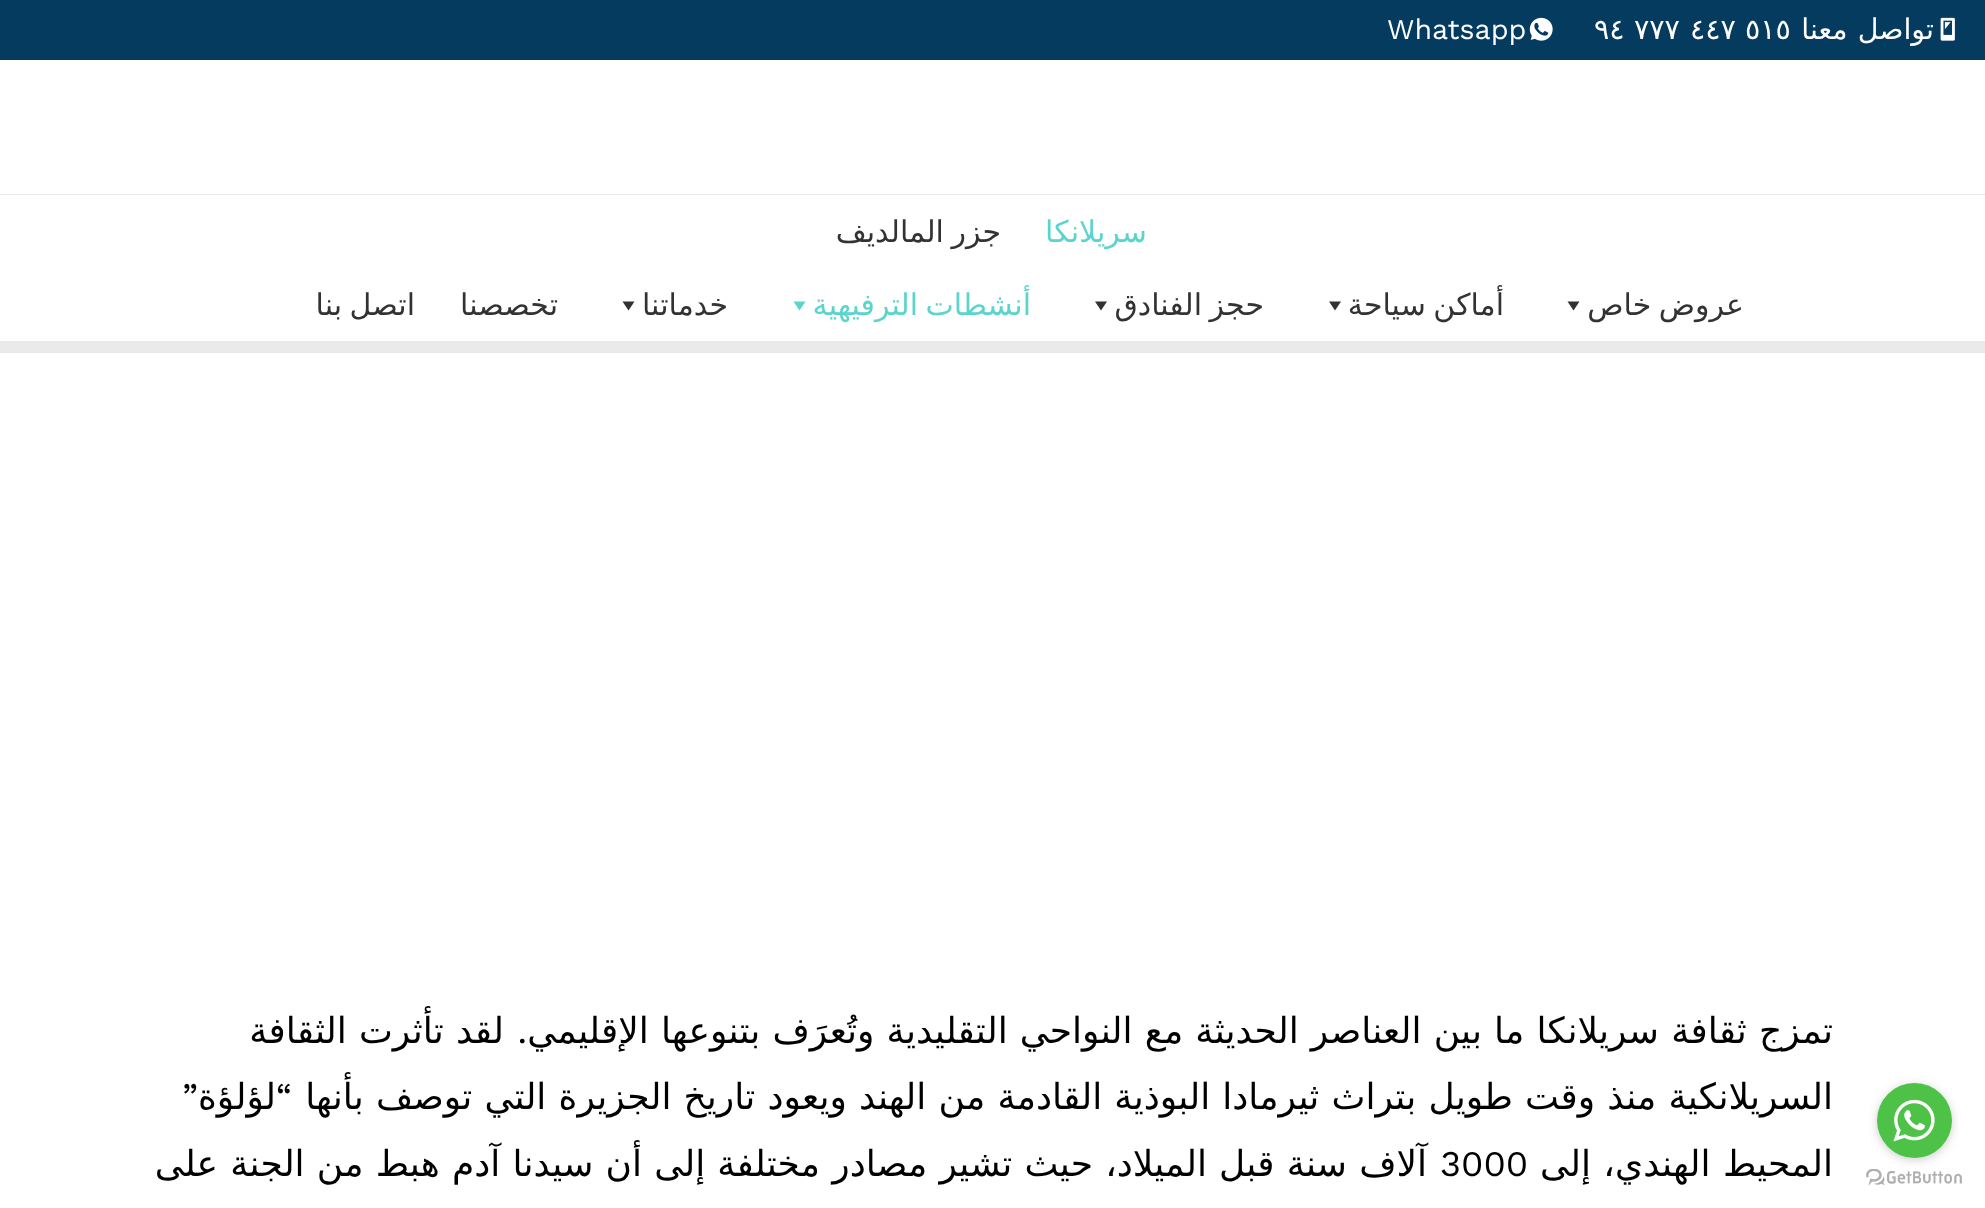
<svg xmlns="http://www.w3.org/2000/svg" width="1985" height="1208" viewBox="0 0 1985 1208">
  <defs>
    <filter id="blur1" x="-50%" y="-200%" width="200%" height="500%"><feGaussianBlur stdDeviation="5"/></filter>
  </defs>
  <rect width="100%" height="100%" fill="#ffffff"/>
  <rect x="0" y="0" width="1985" height="60" fill="#043b5f"/>
  <image x="1940" y="17" width="15" height="24" href="img1.png"/>
  <text x="1934" y="39" word-spacing="1" font-family="DejaVu Sans" font-size="28.5" direction="rtl" fill="#ffffff">تواصل معنا</text>
  <text x="1745" y="39" font-family="DejaVu Sans" font-size="28.5" fill="#ffffff">٥١٥</text>
  <text x="1690" y="39" font-family="DejaVu Sans" font-size="28.5" fill="#ffffff">٤٤٧</text>
  <text x="1634" y="39" font-family="DejaVu Sans" font-size="28.5" fill="#ffffff">٧٧٧</text>
  <text x="1594" y="39" font-family="DejaVu Sans" font-size="28.5" fill="#ffffff">٩٤</text>
  <image x="1529" y="17" width="24" height="24" href="img2.png"/>
  <text x="1387" y="39" font-family="Work Sans" font-size="28.5" fill="#ffffff">Whatsapp</text>
  <rect x="0" y="194" width="1985" height="1" fill="#eaeaea"/>
  <text x="1147" y="242" font-family="DejaVu Sans" font-size="30" direction="rtl" fill="#5ad4cc">سريلانكا</text>
  <text x="1001" y="242" word-spacing="-2" font-family="DejaVu Sans" font-size="30" direction="rtl" fill="#323232">جزر المالديف</text>
  <rect x="0" y="341" width="1985" height="12" fill="#eaeaea"/>
  <text x="1744" y="315" word-spacing="-2" font-family="DejaVu Sans" font-size="30" direction="rtl" fill="#323232">عروض خاص</text>
  <path d="M1579.5 301.5L1573.5 310.5L1567.5 301.5Z" fill="#323232"/>
  <text x="1504" y="315" word-spacing="-2" font-family="DejaVu Sans" font-size="30" direction="rtl" fill="#323232">أماكن سياحة</text>
  <path d="M1341 301.5L1335 310.5L1329 301.5Z" fill="#323232"/>
  <text x="1264" y="315" word-spacing="-2" font-family="DejaVu Sans" font-size="30" direction="rtl" fill="#323232">حجز الفنادق</text>
  <path d="M1107 301.5L1101 310.5L1095 301.5Z" fill="#323232"/>
  <text x="1031" y="315" word-spacing="-2" font-family="DejaVu Sans" font-size="30" direction="rtl" fill="#5ad4cc">أنشطات الترفيهية</text>
  <path d="M805.5 301.5L799.5 310.5L793.5 301.5Z" fill="#5ad4cc"/>
  <text x="728" y="315" font-family="DejaVu Sans" font-size="30" direction="rtl" fill="#323232">خدماتنا</text>
  <path d="M634.5 301.5L628.5 310.5L622.5 301.5Z" fill="#323232"/>
  <text x="558" y="315" font-family="DejaVu Sans" font-size="30" direction="rtl" fill="#323232">تخصصنا</text>
  <text x="415" y="315" word-spacing="-2" font-family="DejaVu Sans" font-size="30" direction="rtl" fill="#323232">اتصل بنا</text>
  <text x="1833" y="1043" word-spacing="0.75" font-family="DejaVu Sans" font-size="36" direction="rtl" fill="#000000">تمزج ثقافة سريلانكا ما بين العناصر الحديثة مع النواحي التقليدية وتُعرَف بتنوعها الإقليمي</text>
  <text x="527" y="1043" font-family="Work Sans" font-size="36" direction="rtl" fill="#000000">.</text>
  <text x="504" y="1043" word-spacing="0.75" font-family="DejaVu Sans" font-size="36" direction="rtl" fill="#000000">لقد تأثرت الثقافة</text>
  <text x="1833" y="1109" word-spacing="0.75" font-family="DejaVu Sans" font-size="36" direction="rtl" fill="#000000">السريلانكية منذ وقت طويل بتراث ثيرمادا البوذية القادمة من الهند ويعود تاريخ الجزيرة التي توصف بأنها</text>
  <text x="292" y="1109" font-family="Work Sans" font-size="36" direction="rtl" fill="#000000">“</text>
  <text x="276" y="1109" font-family="DejaVu Sans" font-size="36" direction="rtl" fill="#000000">لؤلؤة</text>
  <text x="198" y="1109" font-family="Work Sans" font-size="36" direction="rtl" fill="#000000">”</text>
  <text x="1833" y="1176" word-spacing="1" font-family="DejaVu Sans" font-size="36" direction="rtl" fill="#000000">المحيط الهندي، إلى</text>
  <text x="1440" y="1176" font-family="Work Sans" font-size="36" fill="#000000">3000</text>
  <text x="1427" y="1176" word-spacing="0.75" font-family="DejaVu Sans" font-size="36" direction="rtl" fill="#000000">آلاف سنة قبل الميلاد، حيث تشير مصادر مختلفة إلى أن سيدنا آدم هبط من الجنة على</text>
  <image x="1866" y="1169" width="96" height="16" href="img4.png"/>
  <rect x="1877" y="1085" width="75" height="75" rx="37.5" fill="#888888" fill-opacity="0.4" filter="url(#blur1)"/>
  <circle cx="1914.5" cy="1120.5" r="37.5" fill="#4dc247"/>
  <image x="1893" y="1099" width="42" height="43" href="img3.png"/>
</svg>
